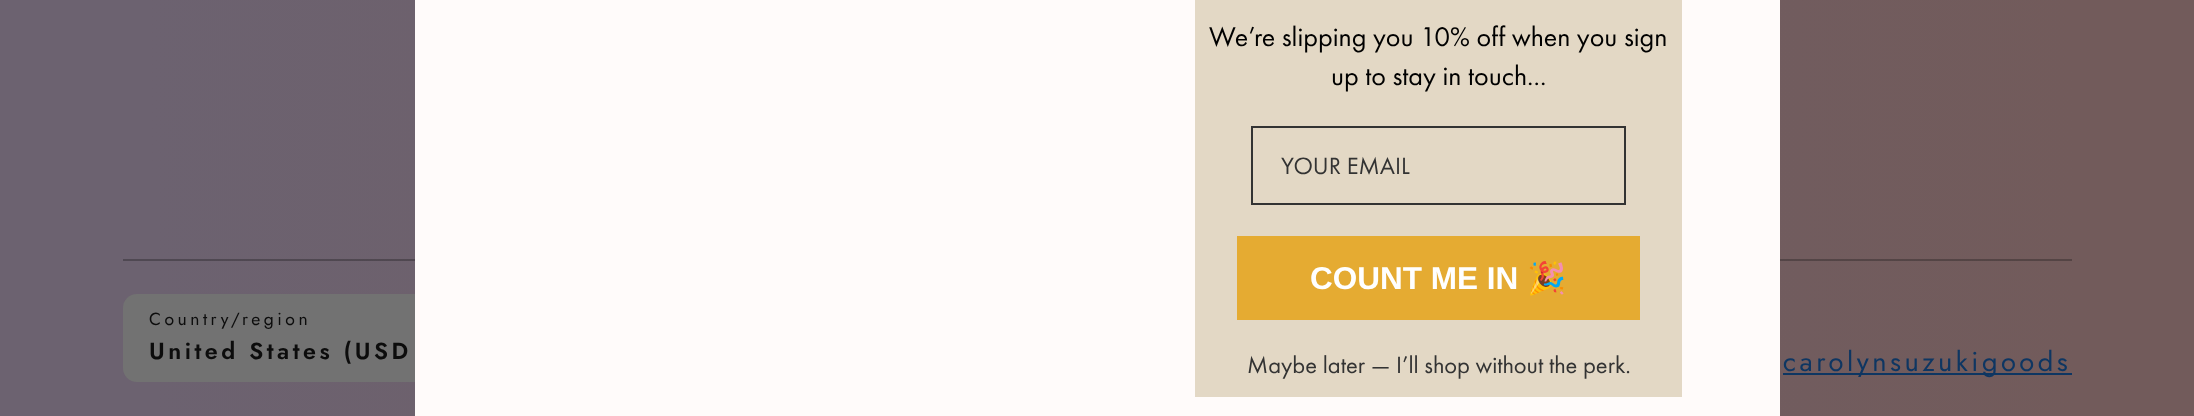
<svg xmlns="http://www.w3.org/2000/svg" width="2194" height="416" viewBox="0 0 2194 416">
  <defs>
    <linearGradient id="g1" gradientUnits="userSpaceOnUse" x1="-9" y1="-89" x2="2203" y2="-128"><stop offset="0.07" stop-color="#6c6270"/><stop offset="0.94" stop-color="#725b5b"/></linearGradient>
    <linearGradient id="g2" gradientUnits="userSpaceOnUse" x1="-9" y1="-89" x2="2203" y2="-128"><stop offset="0.07" stop-color="#4f4852"/><stop offset="0.94" stop-color="#544444"/></linearGradient>
  </defs>
  <rect width="100%" height="100%" fill="#ffffff"/>
  <rect x="0" y="0" width="2194" height="416" fill="url(#g1)"/>
  <rect x="123" y="259" width="1949" height="2" fill="url(#g2)"/>
  <rect x="123" y="294" width="393" height="88" rx="14" fill="#727272"/>
  <rect x="415" y="0" width="1365" height="416" fill="#fffbfa"/>
  <rect x="1195" y="0" width="487" height="397" fill="#e3d8c5"/>
  <text x="1209" y="46" font-family="Futura PT" font-size="28" fill="#000000">We’re slipping you 10% off when you sign</text>
  <text x="1331" y="85" font-family="Futura PT" font-size="28" fill="#000000">up to stay in touch...</text>
  <rect x="1252" y="127" width="373" height="77" fill="none" stroke="#333333" stroke-width="2"/>
  <text x="1281" y="174" font-family="Futura PT" font-size="24.5" fill="#333333">YOUR EMAIL</text>
  <rect x="1237" y="236" width="403" height="84" fill="#e5ab32"/>
  <text x="1310" y="289" font-family="Liberation Sans" font-size="31.5" font-weight="bold" fill="#ffffff">COUNT ME IN</text>
  <text x="1527" y="289" font-family="Noto Color Emoji" font-size="31.5" font-weight="bold" fill="#ffffff">🎉</text>
  <text x="1247" y="373" font-family="Futura PT" font-size="24.5" fill="#333333">Maybe later — I’ll shop without the perk.</text>
  <text x="149" y="325" font-family="Jost" font-size="17.5" letter-spacing="3.5" fill="#0c0c0c">Country/region</text>
  <text x="149" y="359" font-family="Jost" font-size="23.25" font-weight="600" letter-spacing="3.5" fill="#0c0c0c">United States (USD</text>
  <rect x="1783" y="373" width="289" height="2" fill="#0e3662"/>
  <text x="1783" y="371" font-family="Jost" font-size="27.25" letter-spacing="3.5" fill="#0e3662">carolynsuzukigoods</text>
</svg>
